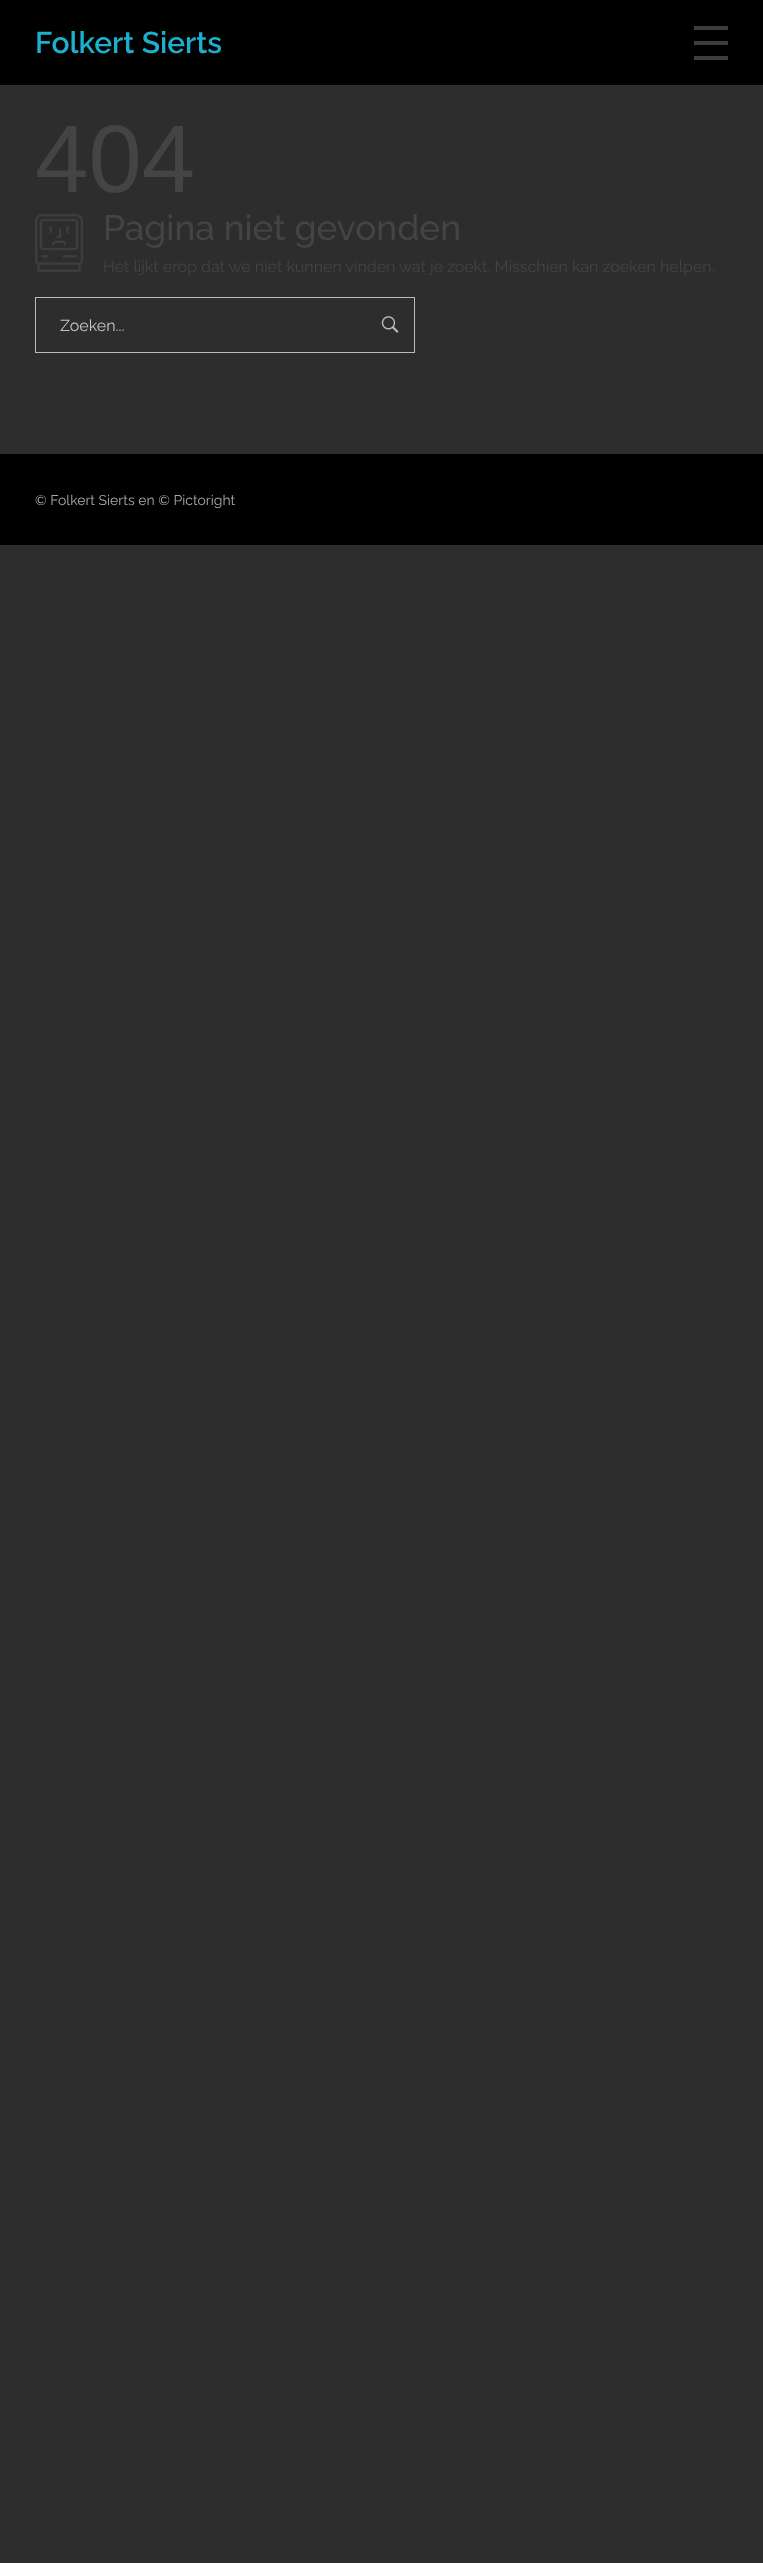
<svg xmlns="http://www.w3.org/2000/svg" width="763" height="2563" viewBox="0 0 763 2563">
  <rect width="100%" height="100%" fill="#2d2d2d"/>
  <rect x="0" y="0" width="763" height="85" fill="#000000"/>
  <text x="35" y="53" font-family="Raleway" font-size="30" font-weight="600" fill="#1bb0ce">Folkert Sierts</text>
  <rect x="694" y="26" width="34" height="4" fill="#3d3d3d"/>
  <rect x="694" y="41" width="34" height="4" fill="#3d3d3d"/>
  <rect x="694" y="56" width="34" height="4" fill="#3d3d3d"/>
  <text x="35" y="192" font-family="Liberation Sans" font-size="96" fill="#444444">404</text>
  <image x="35" y="214" width="48" height="58" href="img1.png"/>
  <text x="103" y="240" font-family="Raleway" font-size="35.25" font-weight="500" fill="#444444">Pagina niet gevonden</text>
  <text x="103" y="272" font-family="Raleway" font-size="16" fill="#444444">Het lijkt erop dat we niet kunnen vinden wat je zoekt. Misschien kan zoeken helpen.</text>
  <rect x="35.5" y="297.5" width="379" height="55" fill="none" stroke="#bbbbbb"/>
  <text x="60" y="331" font-family="Raleway" font-size="16" fill="#c5c5c5">Zoeken...</text>
  <image x="381" y="316" width="18" height="17" href="img2.png"/>
  <rect x="0" y="454" width="763" height="91" fill="#000000"/>
  <text x="35" y="505" font-family="Raleway" font-size="14" fill="#aaaaaa">© Folkert Sierts en © Pictoright</text>
</svg>
